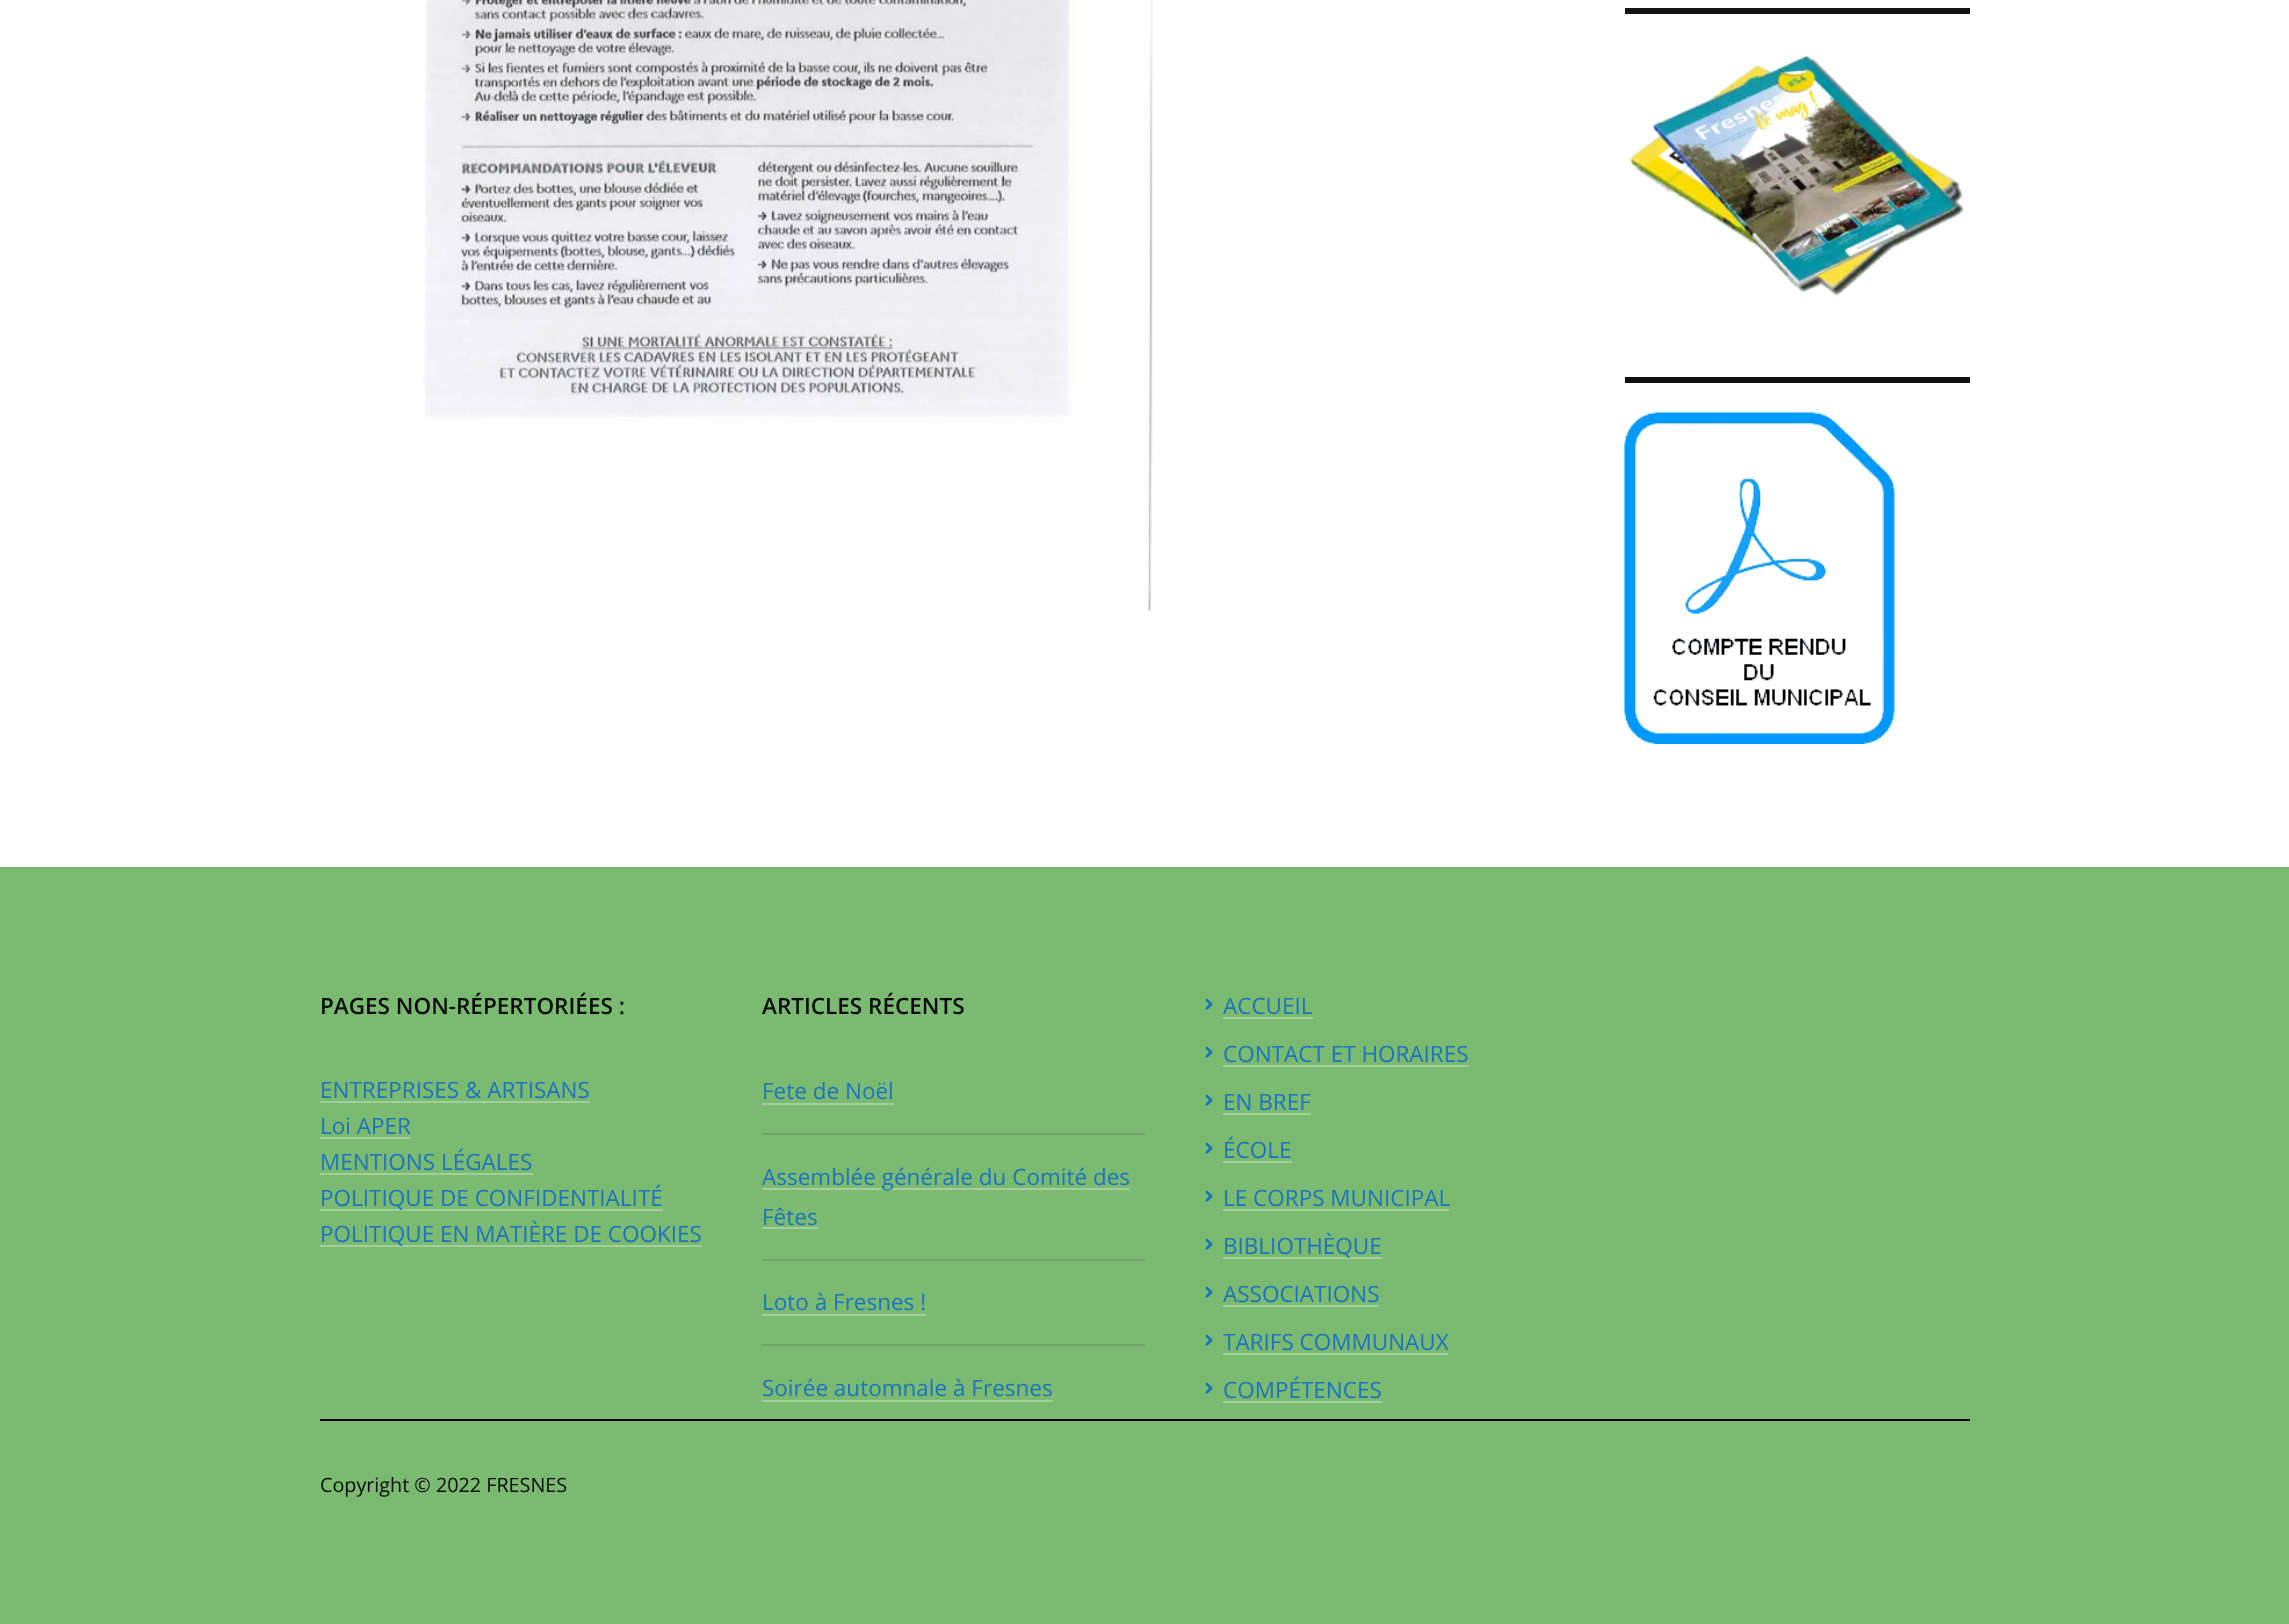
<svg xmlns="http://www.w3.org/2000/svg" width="2289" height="1624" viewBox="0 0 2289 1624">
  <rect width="100%" height="100%" fill="#ffffff"/>
  <image x="423" y="0" width="730" height="611" href="img1.png"/>
  <rect x="1625" y="8" width="345" height="6" fill="#111111"/>
  <image x="1630" y="55" width="334" height="241" href="img2.png"/>
  <rect x="1625" y="377" width="345" height="6" fill="#111111"/>
  <image x="1624" y="412" width="271" height="332" href="img3.png"/>
  <rect x="0" y="867" width="2289" height="757" fill="#7aba71"/>
  <text x="320" y="1014" font-family="Open Sans" font-size="22.5" font-weight="600" fill="#0a0a0a">PAGES NON-RÉPERTORIÉES :</text>
  <text x="320" y="1098" font-family="Open Sans" font-size="22.5" fill="#1e73be">ENTREPRISES &amp; ARTISANS</text>
  <rect x="320" y="1101" width="270" height="2" fill="#a2cf9c"/>
  <text x="320" y="1134" font-family="Open Sans" font-size="22.5" fill="#1e73be">Loi APER</text>
  <rect x="320" y="1137" width="91" height="2" fill="#a2cf9c"/>
  <text x="320" y="1170" font-family="Open Sans" font-size="22.5" fill="#1e73be">MENTIONS LÉGALES</text>
  <rect x="320" y="1173" width="213" height="2" fill="#a2cf9c"/>
  <rect x="320" y="1209" width="343" height="2" fill="#a2cf9c"/>
  <text x="320" y="1206" font-family="Open Sans" font-size="22.5" fill="#1e73be">POLITIQUE DE CONFIDENTIALITÉ</text>
  <rect x="320" y="1245" width="382" height="2" fill="#a2cf9c"/>
  <text x="320" y="1242" font-family="Open Sans" font-size="22.5" fill="#1e73be">POLITIQUE EN MATIÈRE DE COOKIES</text>
  <text x="762" y="1014" font-family="Open Sans" font-size="22.5" font-weight="600" fill="#0a0a0a">ARTICLES RÉCENTS</text>
  <rect x="762" y="1133" width="383" height="2" fill="#6ea766"/>
  <text x="762" y="1099" font-family="Open Sans" font-size="22.5" fill="#1e73be">Fete de Noël</text>
  <rect x="762" y="1103" width="132" height="2" fill="#a2cf9c"/>
  <rect x="762" y="1259" width="383" height="2" fill="#6ea766"/>
  <rect x="762" y="1188" width="368" height="2" fill="#a2cf9c"/>
  <text x="762" y="1185" font-family="Open Sans" font-size="22.5" fill="#1e73be">Assemblée générale du Comité des</text>
  <text x="762" y="1225" font-family="Open Sans" font-size="22.5" fill="#1e73be">Fêtes</text>
  <rect x="762" y="1227" width="56" height="2" fill="#a2cf9c"/>
  <rect x="762" y="1344" width="383" height="2" fill="#6ea766"/>
  <text x="762" y="1310" font-family="Open Sans" font-size="22.5" fill="#1e73be">Loto à Fresnes !</text>
  <rect x="762" y="1314" width="164" height="2" fill="#a2cf9c"/>
  <text x="762" y="1396" font-family="Open Sans" font-size="22.5" fill="#1e73be">Soirée automnale à Fresnes</text>
  <rect x="762" y="1400" width="291" height="2" fill="#a2cf9c"/>
  <image x="1205" y="998" width="8" height="12" href="img4.png"/>
  <text x="1223" y="1014" font-family="Open Sans" font-size="22.5" fill="#1e73be">ACCUEIL</text>
  <rect x="1223" y="1017" width="90" height="2" fill="#a2cf9c"/>
  <image x="1205" y="1046" width="8" height="12" href="img4.png"/>
  <text x="1223" y="1062" font-family="Open Sans" font-size="22.5" fill="#1e73be">CONTACT ET HORAIRES</text>
  <rect x="1223" y="1065" width="246" height="2" fill="#a2cf9c"/>
  <image x="1205" y="1094" width="8" height="12" href="img4.png"/>
  <text x="1223" y="1110" font-family="Open Sans" font-size="22.5" fill="#1e73be">EN BREF</text>
  <rect x="1223" y="1113" width="88" height="2" fill="#a2cf9c"/>
  <image x="1205" y="1142" width="8" height="12" href="img4.png"/>
  <text x="1223" y="1158" font-family="Open Sans" font-size="22.5" fill="#1e73be">ÉCOLE</text>
  <rect x="1223" y="1161" width="69" height="2" fill="#a2cf9c"/>
  <image x="1205" y="1190" width="8" height="12" href="img4.png"/>
  <text x="1223" y="1206" font-family="Open Sans" font-size="22.5" fill="#1e73be">LE CORPS MUNICIPAL</text>
  <rect x="1223" y="1209" width="226" height="2" fill="#a2cf9c"/>
  <image x="1205" y="1238" width="8" height="12" href="img4.png"/>
  <rect x="1223" y="1257" width="159" height="2" fill="#a2cf9c"/>
  <text x="1223" y="1254" font-family="Open Sans" font-size="22.5" fill="#1e73be">BIBLIOTHÈQUE</text>
  <image x="1205" y="1286" width="8" height="12" href="img4.png"/>
  <text x="1223" y="1302" font-family="Open Sans" font-size="22.5" fill="#1e73be">ASSOCIATIONS</text>
  <rect x="1223" y="1305" width="156" height="2" fill="#a2cf9c"/>
  <image x="1205" y="1334" width="8" height="12" href="img4.png"/>
  <text x="1223" y="1350" font-family="Open Sans" font-size="22.5" fill="#1e73be">TARIFS COMMUNAUX</text>
  <rect x="1223" y="1353" width="225" height="2" fill="#a2cf9c"/>
  <image x="1205" y="1382" width="8" height="12" href="img4.png"/>
  <text x="1223" y="1398" font-family="Open Sans" font-size="22.5" fill="#1e73be">COMPÉTENCES</text>
  <rect x="1223" y="1401" width="159" height="2" fill="#a2cf9c"/>
  <rect x="320" y="1419" width="1650" height="2" fill="#0a0a0a"/>
  <text x="320" y="1492" font-family="Open Sans" font-size="19.75" fill="#0a0a0a">Copyright © 2022 FRESNES</text>
</svg>
